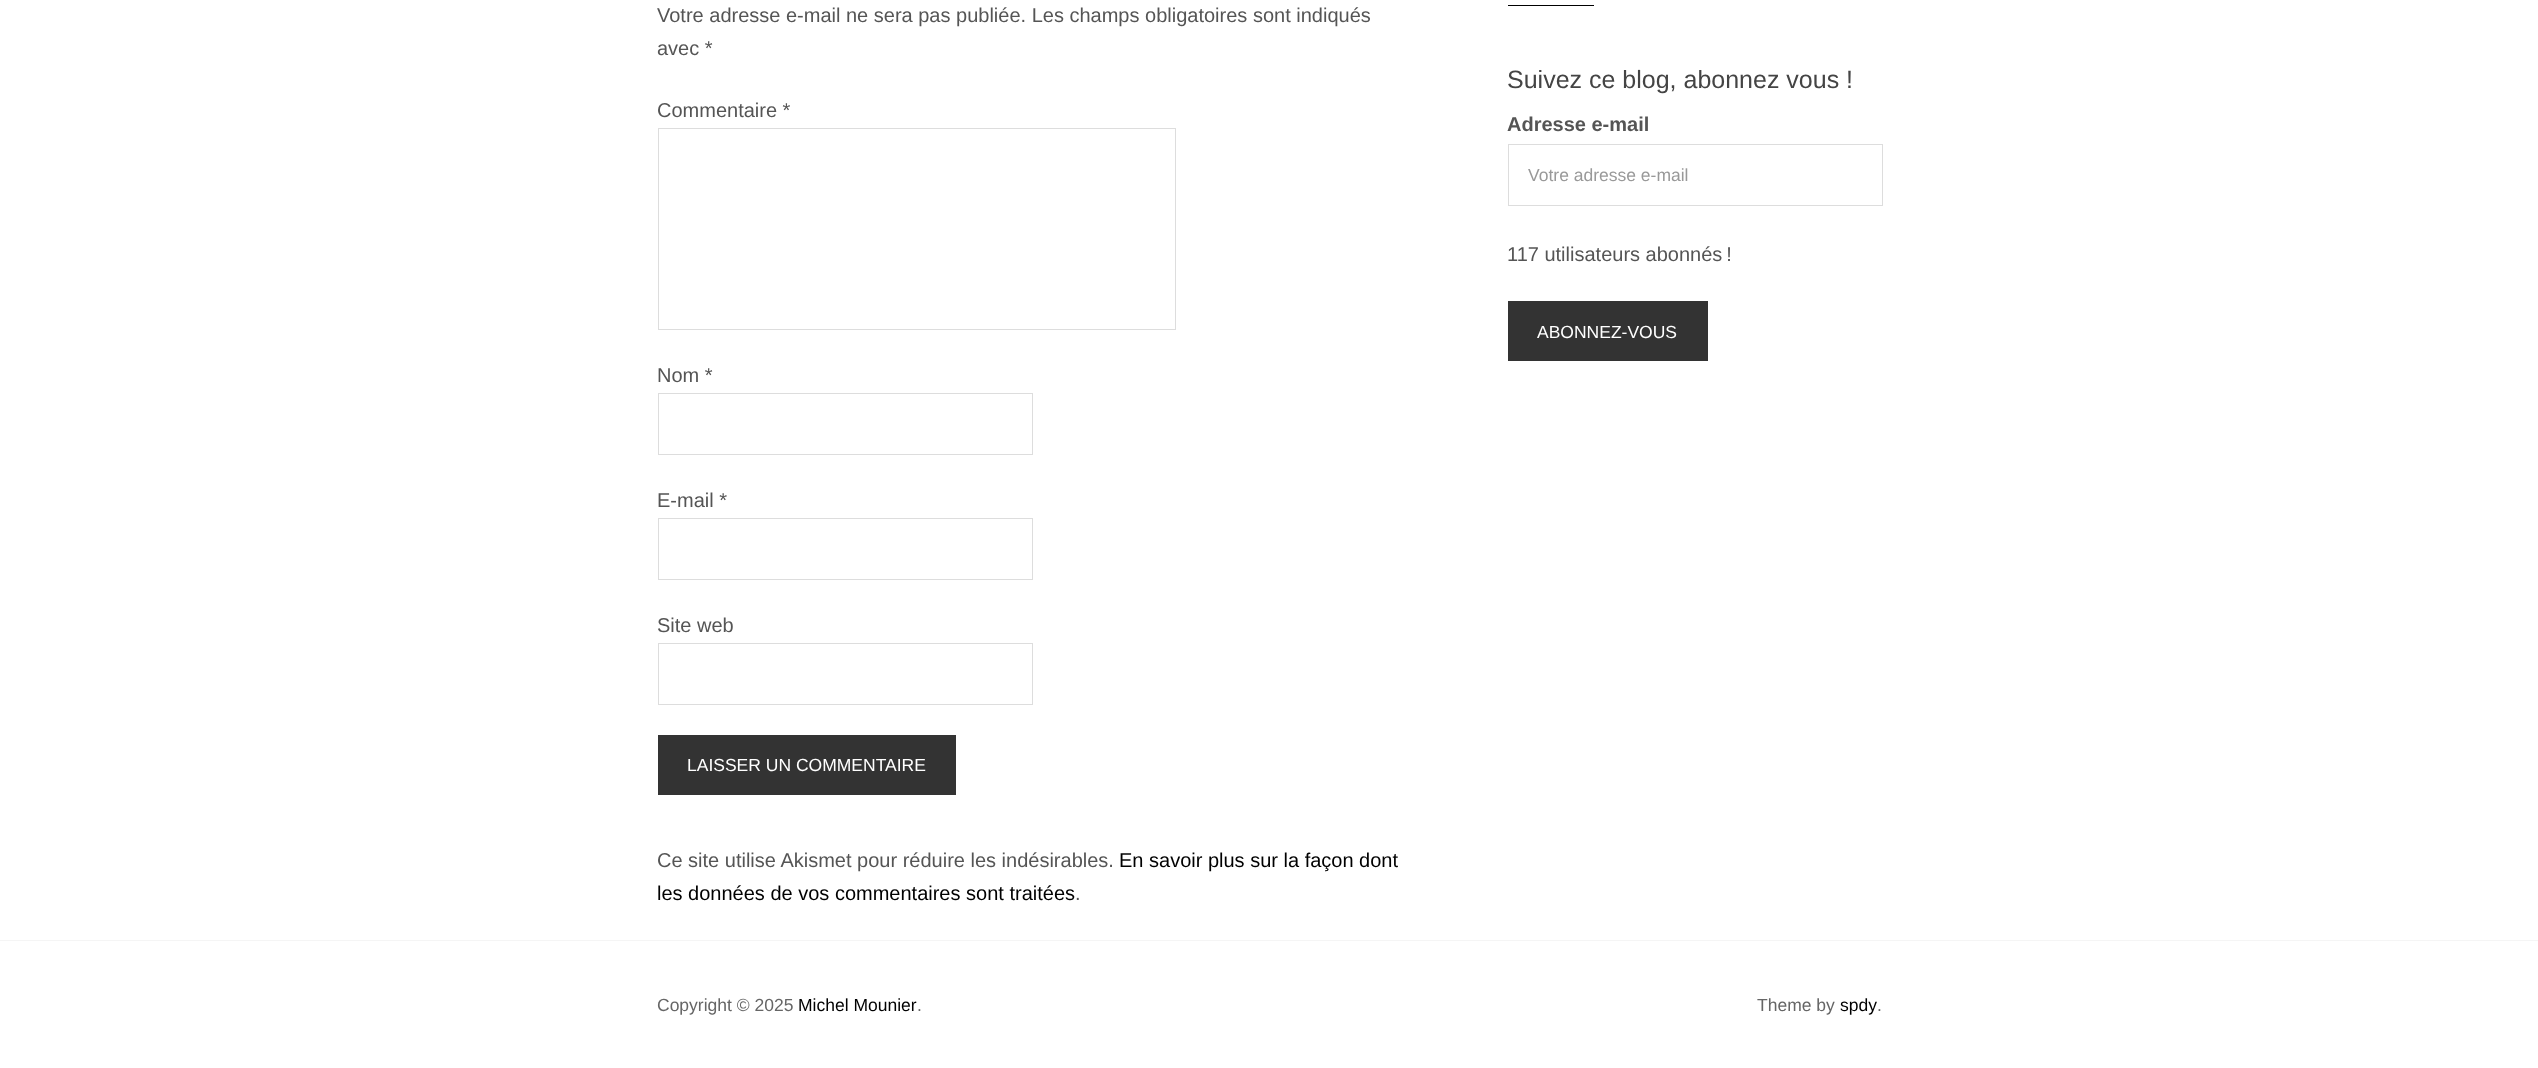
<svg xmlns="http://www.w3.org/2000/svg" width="2538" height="1068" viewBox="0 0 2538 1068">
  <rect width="100%" height="100%" fill="#ffffff"/>
  <text x="657" y="22" font-family="Liberation Sans" font-size="20" fill="#555555">Votre adresse e-mail ne sera pas publiée. Les champs obligatoires sont indiqués</text>
  <text x="657" y="55" font-family="Liberation Sans" font-size="20" fill="#555555">avec *</text>
  <text x="657" y="117" font-family="Liberation Sans" font-size="20" fill="#555555">Commentaire *</text>
  <rect x="658.5" y="128.5" width="517" height="201" fill="none" stroke="#dddddd"/>
  <text x="657" y="382" font-family="Liberation Sans" font-size="20" fill="#555555">Nom *</text>
  <rect x="658.5" y="393.5" width="374" height="61" fill="none" stroke="#dddddd"/>
  <text x="657" y="507" font-family="Liberation Sans" font-size="20" fill="#555555">E-mail *</text>
  <rect x="658.5" y="518.5" width="374" height="61" fill="none" stroke="#dddddd"/>
  <text x="657" y="632" font-family="Liberation Sans" font-size="20" fill="#555555">Site web</text>
  <rect x="658.5" y="643.5" width="374" height="61" fill="none" stroke="#dddddd"/>
  <rect x="658" y="735" width="298" height="60" fill="#333333"/>
  <text x="687" y="771" font-family="Liberation Sans" font-size="17.5" fill="#ffffff">LAISSER UN COMMENTAIRE</text>
  <text x="657" y="867" font-family="Liberation Sans" font-size="20" fill="#555555">Ce site utilise Akismet pour réduire les indésirables.</text>
  <text x="1119" y="867" font-family="Liberation Sans" font-size="20" fill="#000000">En savoir plus sur la façon dont</text>
  <text x="657" y="900" font-family="Liberation Sans" font-size="20" fill="#000000">les données de vos commentaires sont traitées</text>
  <text x="1075" y="900" font-family="Liberation Sans" font-size="20" fill="#555555">.</text>
  <rect x="1508" y="5" width="86" height="1" fill="#000000"/>
  <text x="1507" y="88" font-family="Liberation Sans" font-size="25" fill="#444444">Suivez ce blog, abonnez vous !</text>
  <text x="1507" y="131" font-family="Liberation Sans" font-size="20" font-weight="bold" fill="#555555">Adresse e-mail</text>
  <rect x="1508.5" y="144.5" width="374" height="61" fill="none" stroke="#dddddd"/>
  <text x="1528" y="181" font-family="Liberation Sans" font-size="17.5" fill="#999999">Votre adresse e-mail</text>
  <text x="1507" y="261" font-family="Liberation Sans" font-size="20" fill="#555555">117 utilisateurs abonnés !</text>
  <rect x="1508" y="301" width="200" height="60" fill="#333333"/>
  <text x="1537" y="338" font-family="Liberation Sans" font-size="17.5" fill="#ffffff">ABONNEZ-VOUS</text>
  <rect x="0" y="940" width="2538" height="1" fill="#f5f5f5"/>
  <text x="657" y="1011" font-family="Liberation Sans" font-size="17.5" fill="#666666">Copyright © 2025</text>
  <text x="798" y="1011" font-family="Liberation Sans" font-size="17.5" fill="#000000">Michel Mounier</text>
  <text x="917" y="1011" font-family="Liberation Sans" font-size="17.5" fill="#666666">.</text>
  <text x="1757" y="1011" font-family="Liberation Sans" font-size="17.5" fill="#666666">Theme by</text>
  <text x="1840" y="1011" font-family="Liberation Sans" font-size="17.5" fill="#000000">spdy</text>
  <text x="1877" y="1011" font-family="Liberation Sans" font-size="17.5" fill="#666666">.</text>
</svg>
